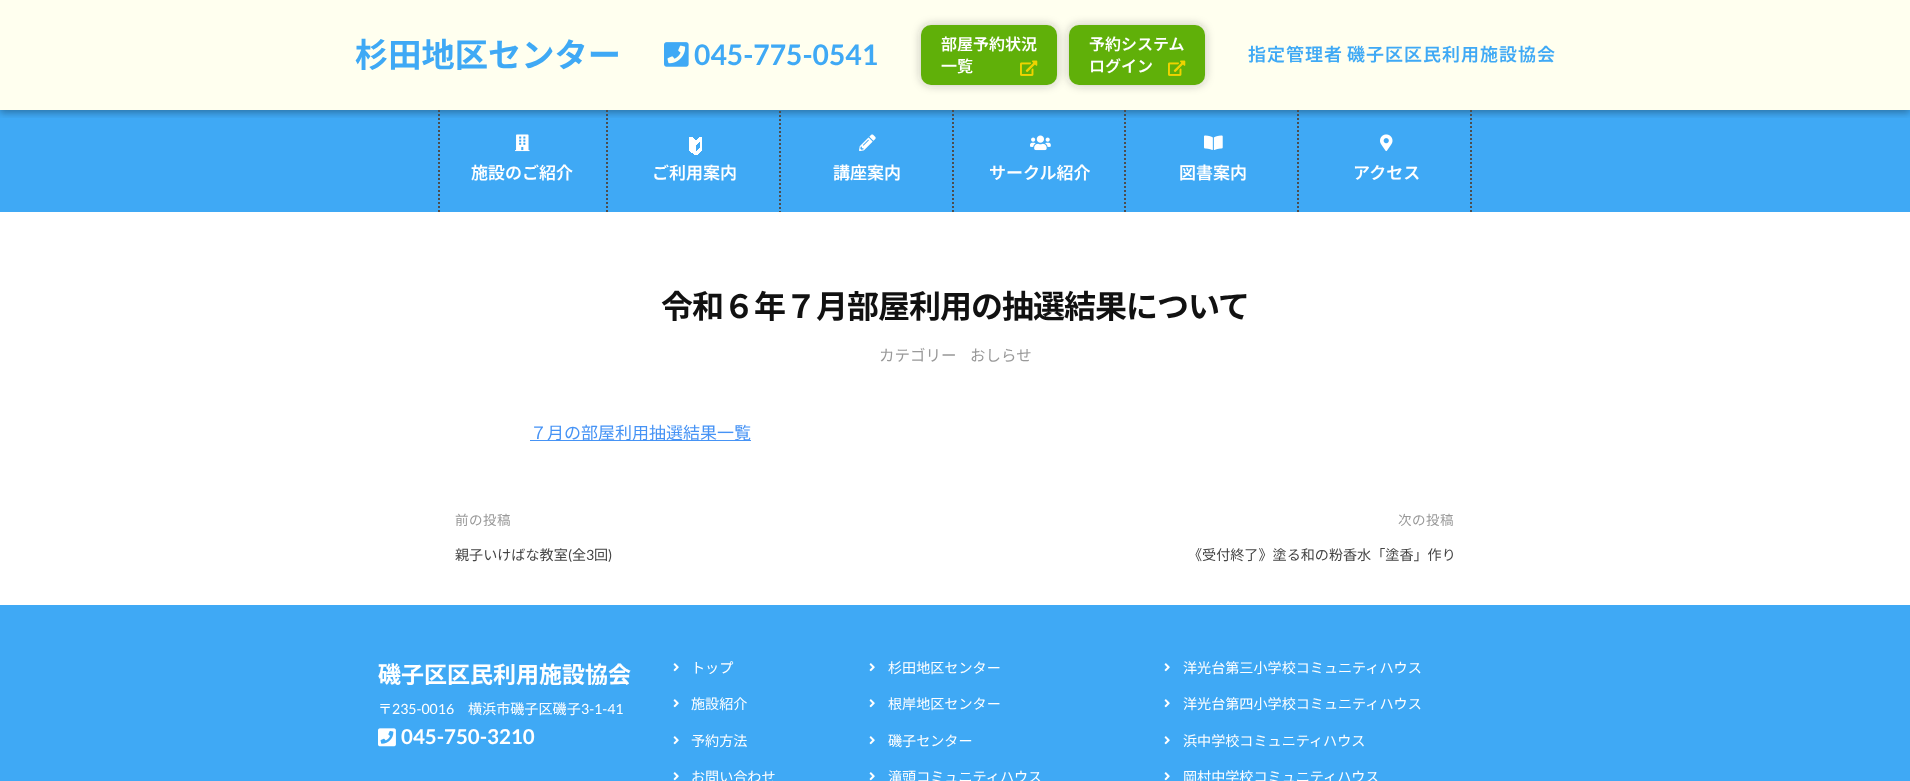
<svg xmlns="http://www.w3.org/2000/svg" width="1910" height="781" viewBox="0 0 1910 781">
  <defs>
    <clipPath id="clip1"><rect x="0" y="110" width="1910" height="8"/></clipPath>
    <filter id="blur1" x="-50%" y="-200%" width="200%" height="500%"><feGaussianBlur stdDeviation="3.5"/></filter>
    <filter id="blur2" x="-50%" y="-200%" width="200%" height="500%"><feGaussianBlur stdDeviation="5"/></filter>
  </defs>
  <rect width="100%" height="100%" fill="#ffffff"/>
  <rect x="0" y="0" width="1910" height="110" fill="#ffffef"/>
  <rect x="0" y="110" width="1910" height="102" fill="#3fa9f5"/>
  <g clip-path="url(#clip1)">
    <rect x="0" y="3" width="1910" height="110" fill="#000000" fill-opacity="0.3" filter="url(#blur1)"/>
  </g>
  <text x="355" y="67" font-family="Noto Sans JP" font-size="33.25" font-weight="bold" fill="#3fa9f5">杉田地区センター</text>
  <image x="664" y="42" width="25" height="25" href="img1.png"/>
  <text x="694" y="65" font-family="Lato" font-size="28.25" font-weight="bold" fill="#3fa9f5">045-775-0541</text>
  <rect x="921" y="25" width="136" height="60" rx="10" fill="#323232" fill-opacity="0.3" filter="url(#blur2)"/>
  <rect x="921" y="25" width="136" height="60" rx="10" fill="#60b009"/>
  <text x="941" y="50" font-family="Noto Sans JP" font-size="16" font-weight="600" fill="#ffffff">部屋予約状況</text>
  <text x="941" y="72" font-family="Noto Sans JP" font-size="16" font-weight="600" fill="#ffffff">一覧</text>
  <image x="1020" y="60" width="18" height="16" href="img2.png"/>
  <rect x="1069" y="25" width="136" height="60" rx="10" fill="#323232" fill-opacity="0.3" filter="url(#blur2)"/>
  <rect x="1069" y="25" width="136" height="60" rx="10" fill="#60b009"/>
  <text x="1089" y="50" font-family="Noto Sans JP" font-size="16" font-weight="600" fill="#ffffff">予約システム</text>
  <text x="1089" y="72" font-family="Noto Sans JP" font-size="16" font-weight="600" fill="#ffffff">ログイン</text>
  <image x="1168" y="60" width="18" height="16" href="img2.png"/>
  <text x="1248" y="61" font-family="Noto Sans JP" font-size="18" font-weight="600" letter-spacing="1" fill="#3fa9f5">指定管理者</text>
  <text x="1347" y="61" font-family="Noto Sans JP" font-size="18" font-weight="600" letter-spacing="1" fill="#3fa9f5">磯子区区民利用施設協会</text>
  <path d="M607 110V212" fill="none" stroke="#4d4d4d" stroke-width="2" stroke-dasharray="2 2"/>
  <path d="M439 110V212" fill="none" stroke="#4d4d4d" stroke-width="2" stroke-dasharray="2 2"/>
  <image x="515" y="134" width="15" height="18" href="img3.png"/>
  <text x="471" y="179" font-family="Noto Sans JP" font-size="17" font-weight="600" fill="#ffffff">施設のご紹介</text>
  <path d="M780 111V212" fill="none" stroke="#4d4d4d" stroke-width="2" stroke-dasharray="2 2"/>
  <image x="689" y="137" width="13" height="18" href="img4.png"/>
  <text x="652" y="179" font-family="Noto Sans JP" font-size="17" font-weight="600" fill="#ffffff">ご利用案内</text>
  <path d="M953 110V212" fill="none" stroke="#4d4d4d" stroke-width="2" stroke-dasharray="2 2"/>
  <image x="859" y="134" width="17" height="18" href="img5.png"/>
  <text x="833" y="179" font-family="Noto Sans JP" font-size="17" font-weight="600" fill="#ffffff">講座案内</text>
  <path d="M1125 110V212" fill="none" stroke="#4d4d4d" stroke-width="2" stroke-dasharray="2 2"/>
  <image x="1030" y="135" width="21" height="16" href="img6.png"/>
  <text x="989" y="179" font-family="Noto Sans JP" font-size="17" font-weight="600" fill="#ffffff">サークル紹介</text>
  <path d="M1298 110V212" fill="none" stroke="#4d4d4d" stroke-width="2" stroke-dasharray="2 2"/>
  <image x="1204" y="135" width="19" height="15" href="img7.png"/>
  <text x="1179" y="179" font-family="Noto Sans JP" font-size="17" font-weight="600" fill="#ffffff">図書案内</text>
  <path d="M1471 110V212" fill="none" stroke="#4d4d4d" stroke-width="2" stroke-dasharray="2 2"/>
  <image x="1380" y="134" width="13" height="18" href="img8.png"/>
  <text x="1353" y="179" font-family="Noto Sans JP" font-size="17" font-weight="600" fill="#ffffff">アクセス</text>
  <text x="661" y="318" font-family="Noto Sans JP" font-size="32" font-weight="bold" letter-spacing="-1" fill="#111111">令和６年７月部屋利用の抽選結果について</text>
  <text x="879" y="361" font-family="Noto Sans JP" font-size="15.5" fill="#999999">カテゴリー</text>
  <text x="970" y="361" font-family="Noto Sans JP" font-size="15.5" fill="#999999">おしらせ</text>
  <rect x="530" y="440" width="221" height="1" fill="#4693f5"/>
  <text x="530" y="439" font-family="Noto Sans JP" font-size="17" fill="#4693f5">７月の部屋利用抽選結果一覧</text>
  <text x="455" y="525" font-family="Noto Sans JP" font-size="13.5" letter-spacing="0.5" fill="#999999">前の投稿</text>
  <text x="455" y="560" font-family="Noto Sans JP" font-size="14.1" fill="#444444">親子いけばな教室</text>
  <text x="568" y="560" font-family="Lato" font-size="14.1" fill="#444444">(</text>
  <text x="572" y="560" font-family="Noto Sans JP" font-size="14.1" fill="#444444">全</text>
  <text x="586" y="560" font-family="Lato" font-size="14.1" fill="#444444">3</text>
  <text x="594" y="560" font-family="Noto Sans JP" font-size="14.1" fill="#444444">回</text>
  <text x="608" y="560" font-family="Lato" font-size="14.1" fill="#444444">)</text>
  <text x="1398" y="525" font-family="Noto Sans JP" font-size="13.5" letter-spacing="0.5" fill="#999999">次の投稿</text>
  <text x="1188" y="560" font-family="Noto Sans JP" font-size="14.1" fill="#444444">《受付終了》塗る和の粉香水「塗香」作り</text>
  <rect x="0" y="605" width="1910" height="176" fill="#3fa9f5"/>
  <text x="378" y="683" font-family="Noto Sans JP" font-size="23" font-weight="bold" fill="#ffffff">磯子区区民利用施設協会</text>
  <text x="378" y="714" font-family="Noto Sans JP" font-size="14.1" fill="#ffffff">〒</text>
  <text x="392" y="714" font-family="Lato" font-size="14.1" fill="#ffffff">235-0016</text>
  <text x="468" y="714" font-family="Noto Sans JP" font-size="14.1" fill="#ffffff">横浜市磯子区磯子</text>
  <text x="581" y="714" font-family="Lato" font-size="14.1" fill="#ffffff">3-1-41</text>
  <image x="378" y="728" width="18" height="19" href="img9.png"/>
  <text x="401" y="744" font-family="Lato" font-size="20.5" font-weight="bold" fill="#ffffff">045-750-3210</text>
  <image x="673" y="663" width="6" height="9" href="img10.png"/>
  <text x="691" y="673" font-family="Noto Sans JP" font-size="14.1" fill="#ffffff">トップ</text>
  <image x="673" y="699" width="6" height="9" href="img10.png"/>
  <text x="691" y="709" font-family="Noto Sans JP" font-size="14.1" fill="#ffffff">施設紹介</text>
  <image x="673" y="736" width="6" height="9" href="img10.png"/>
  <text x="691" y="746" font-family="Noto Sans JP" font-size="14.1" fill="#ffffff">予約方法</text>
  <image x="673" y="772" width="6" height="9" href="img10.png"/>
  <text x="691" y="782" font-family="Noto Sans JP" font-size="14.1" fill="#ffffff">お問い合わせ</text>
  <image x="869" y="663" width="6" height="9" href="img10.png"/>
  <text x="888" y="673" font-family="Noto Sans JP" font-size="14.1" fill="#ffffff">杉田地区センター</text>
  <image x="869" y="699" width="6" height="9" href="img10.png"/>
  <text x="888" y="709" font-family="Noto Sans JP" font-size="14.1" fill="#ffffff">根岸地区センター</text>
  <image x="869" y="736" width="6" height="9" href="img10.png"/>
  <text x="888" y="746" font-family="Noto Sans JP" font-size="14.1" fill="#ffffff">磯子センター</text>
  <image x="869" y="772" width="6" height="9" href="img10.png"/>
  <text x="888" y="782" font-family="Noto Sans JP" font-size="14.1" fill="#ffffff">滝頭コミュニティハウス</text>
  <image x="1164" y="663" width="6" height="9" href="img10.png"/>
  <text x="1183" y="673" font-family="Noto Sans JP" font-size="14.1" fill="#ffffff">洋光台第三小学校コミュニティハウス</text>
  <image x="1164" y="699" width="6" height="9" href="img10.png"/>
  <text x="1183" y="709" font-family="Noto Sans JP" font-size="14.1" fill="#ffffff">洋光台第四小学校コミュニティハウス</text>
  <image x="1164" y="736" width="6" height="9" href="img10.png"/>
  <text x="1183" y="746" font-family="Noto Sans JP" font-size="14.1" fill="#ffffff">浜中学校コミュニティハウス</text>
  <image x="1164" y="772" width="6" height="9" href="img10.png"/>
  <text x="1183" y="782" font-family="Noto Sans JP" font-size="14.1" fill="#ffffff">岡村中学校コミュニティハウス</text>
</svg>
